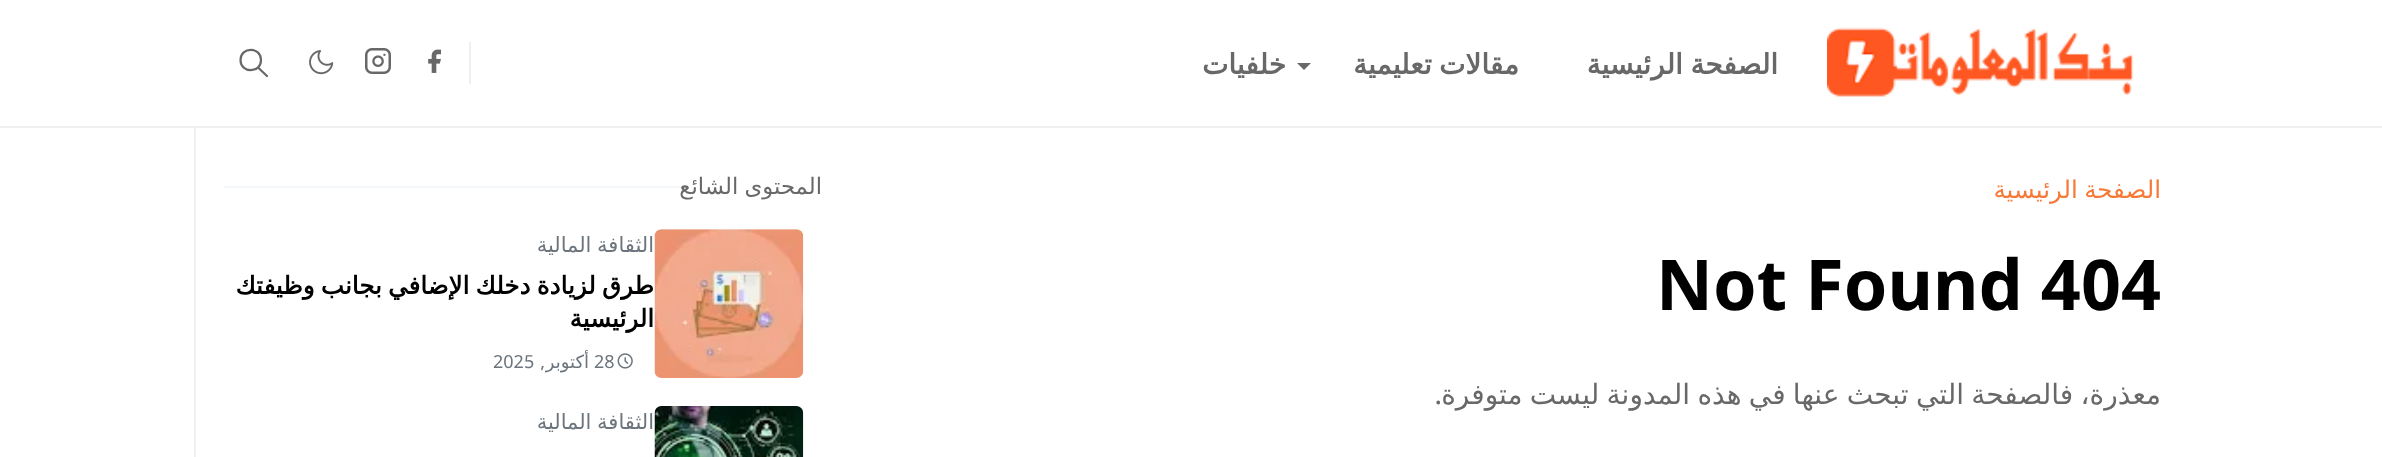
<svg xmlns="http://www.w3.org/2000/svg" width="2382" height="457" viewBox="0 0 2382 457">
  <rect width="100%" height="100%" fill="#ffffff"/>
  <rect x="0" y="126" width="2382" height="2" fill="#efefef"/>
  <image x="1827" y="27" width="307" height="70" href="img1.png"/>
  <text x="1778" y="74" word-spacing="-1.6" font-family="DejaVu Sans" font-size="28" font-weight="bold" direction="rtl" fill="#686868">الصفحة الرئيسية</text>
  <text x="1519" y="74" word-spacing="-1.6" font-family="DejaVu Sans" font-size="28" font-weight="bold" direction="rtl" fill="#686868">مقالات تعليمية</text>
  <path d="M1297 63H1311L1304 70Z" fill="#686868"/>
  <text x="1286" y="74" font-family="DejaVu Sans" font-size="28" font-weight="bold" direction="rtl" fill="#686868">خلفيات</text>
  <rect x="469" y="42" width="2" height="42" fill="#efefef"/>
  <image x="428" y="49" width="13" height="24" href="img2.png"/>
  <image x="365" y="48" width="26" height="26" href="img3.png"/>
  <image x="309" y="50" width="25" height="25" href="img4.png"/>
  <path d="M267 76L258 67.5M261 60C261 73.5 240.5 73.5 240.5 60C240.5 46.5 261 46.5 261 60Z" fill="none" stroke="#686868" stroke-width="2.2" stroke-linecap="round" stroke-linejoin="round"/>
  <text x="2161" y="198" word-spacing="-1.5" font-family="DejaVu Sans" font-size="24.5" direction="rtl" fill="#f67938">الصفحة الرئيسية</text>
  <text x="1656" y="310" font-family="Noto Sans" font-size="70" font-weight="bold" fill="#000000">Not Found 404</text>
  <text x="2161" y="404" word-spacing="-1.6" font-family="DejaVu Sans" font-size="28" direction="rtl" fill="#686868">معذرة، فالصفحة التي تبحث عنها في هذه المدونة ليست متوفرة</text>
  <text x="1442" y="404" font-family="Noto Sans" font-size="28" direction="rtl" fill="#686868">.</text>
  <rect x="194" y="128" width="2" height="329" fill="#efefef"/>
  <text x="822" y="194" word-spacing="-1" font-family="DejaVu Sans" font-size="22.75" direction="rtl" fill="#686868">المحتوى الشائع</text>
  <rect x="224" y="186" width="457" height="2" fill="#f3f7f9"/>
  <rect x="655" y="229" width="148" height="149" rx="7" fill="#f3f7f9"/>
  <image x="654" y="229" width="150" height="149" href="img5.png"/>
  <text x="654" y="252" word-spacing="-1" font-family="DejaVu Sans" font-size="21" direction="rtl" fill="#6c757d">الثقافة المالية</text>
  <text x="654" y="294" word-spacing="-1.5" font-family="DejaVu Sans" font-size="24.5" font-weight="bold" direction="rtl" fill="#000000">طرق لزيادة دخلك الإضافي بجانب وظيفتك</text>
  <text x="654" y="327" font-family="DejaVu Sans" font-size="24.5" font-weight="bold" direction="rtl" fill="#000000">الرئيسية</text>
  <image x="617" y="353" width="16" height="16" href="img6.png"/>
  <text x="594" y="368" font-family="Noto Sans" font-size="18" fill="#6c757d">28</text>
  <text x="589" y="368" font-family="DejaVu Sans" font-size="18" direction="rtl" fill="#6c757d">أكتوبر</text>
  <text x="545" y="368" font-family="Noto Sans" font-size="18" direction="rtl" fill="#6c757d">,</text>
  <text x="493" y="368" font-family="Noto Sans" font-size="18" fill="#6c757d">2025</text>
  <image x="654" y="406" width="150" height="51" href="img7.png"/>
  <text x="654" y="429" word-spacing="-1" font-family="DejaVu Sans" font-size="21" direction="rtl" fill="#6c757d">الثقافة المالية</text>
</svg>
